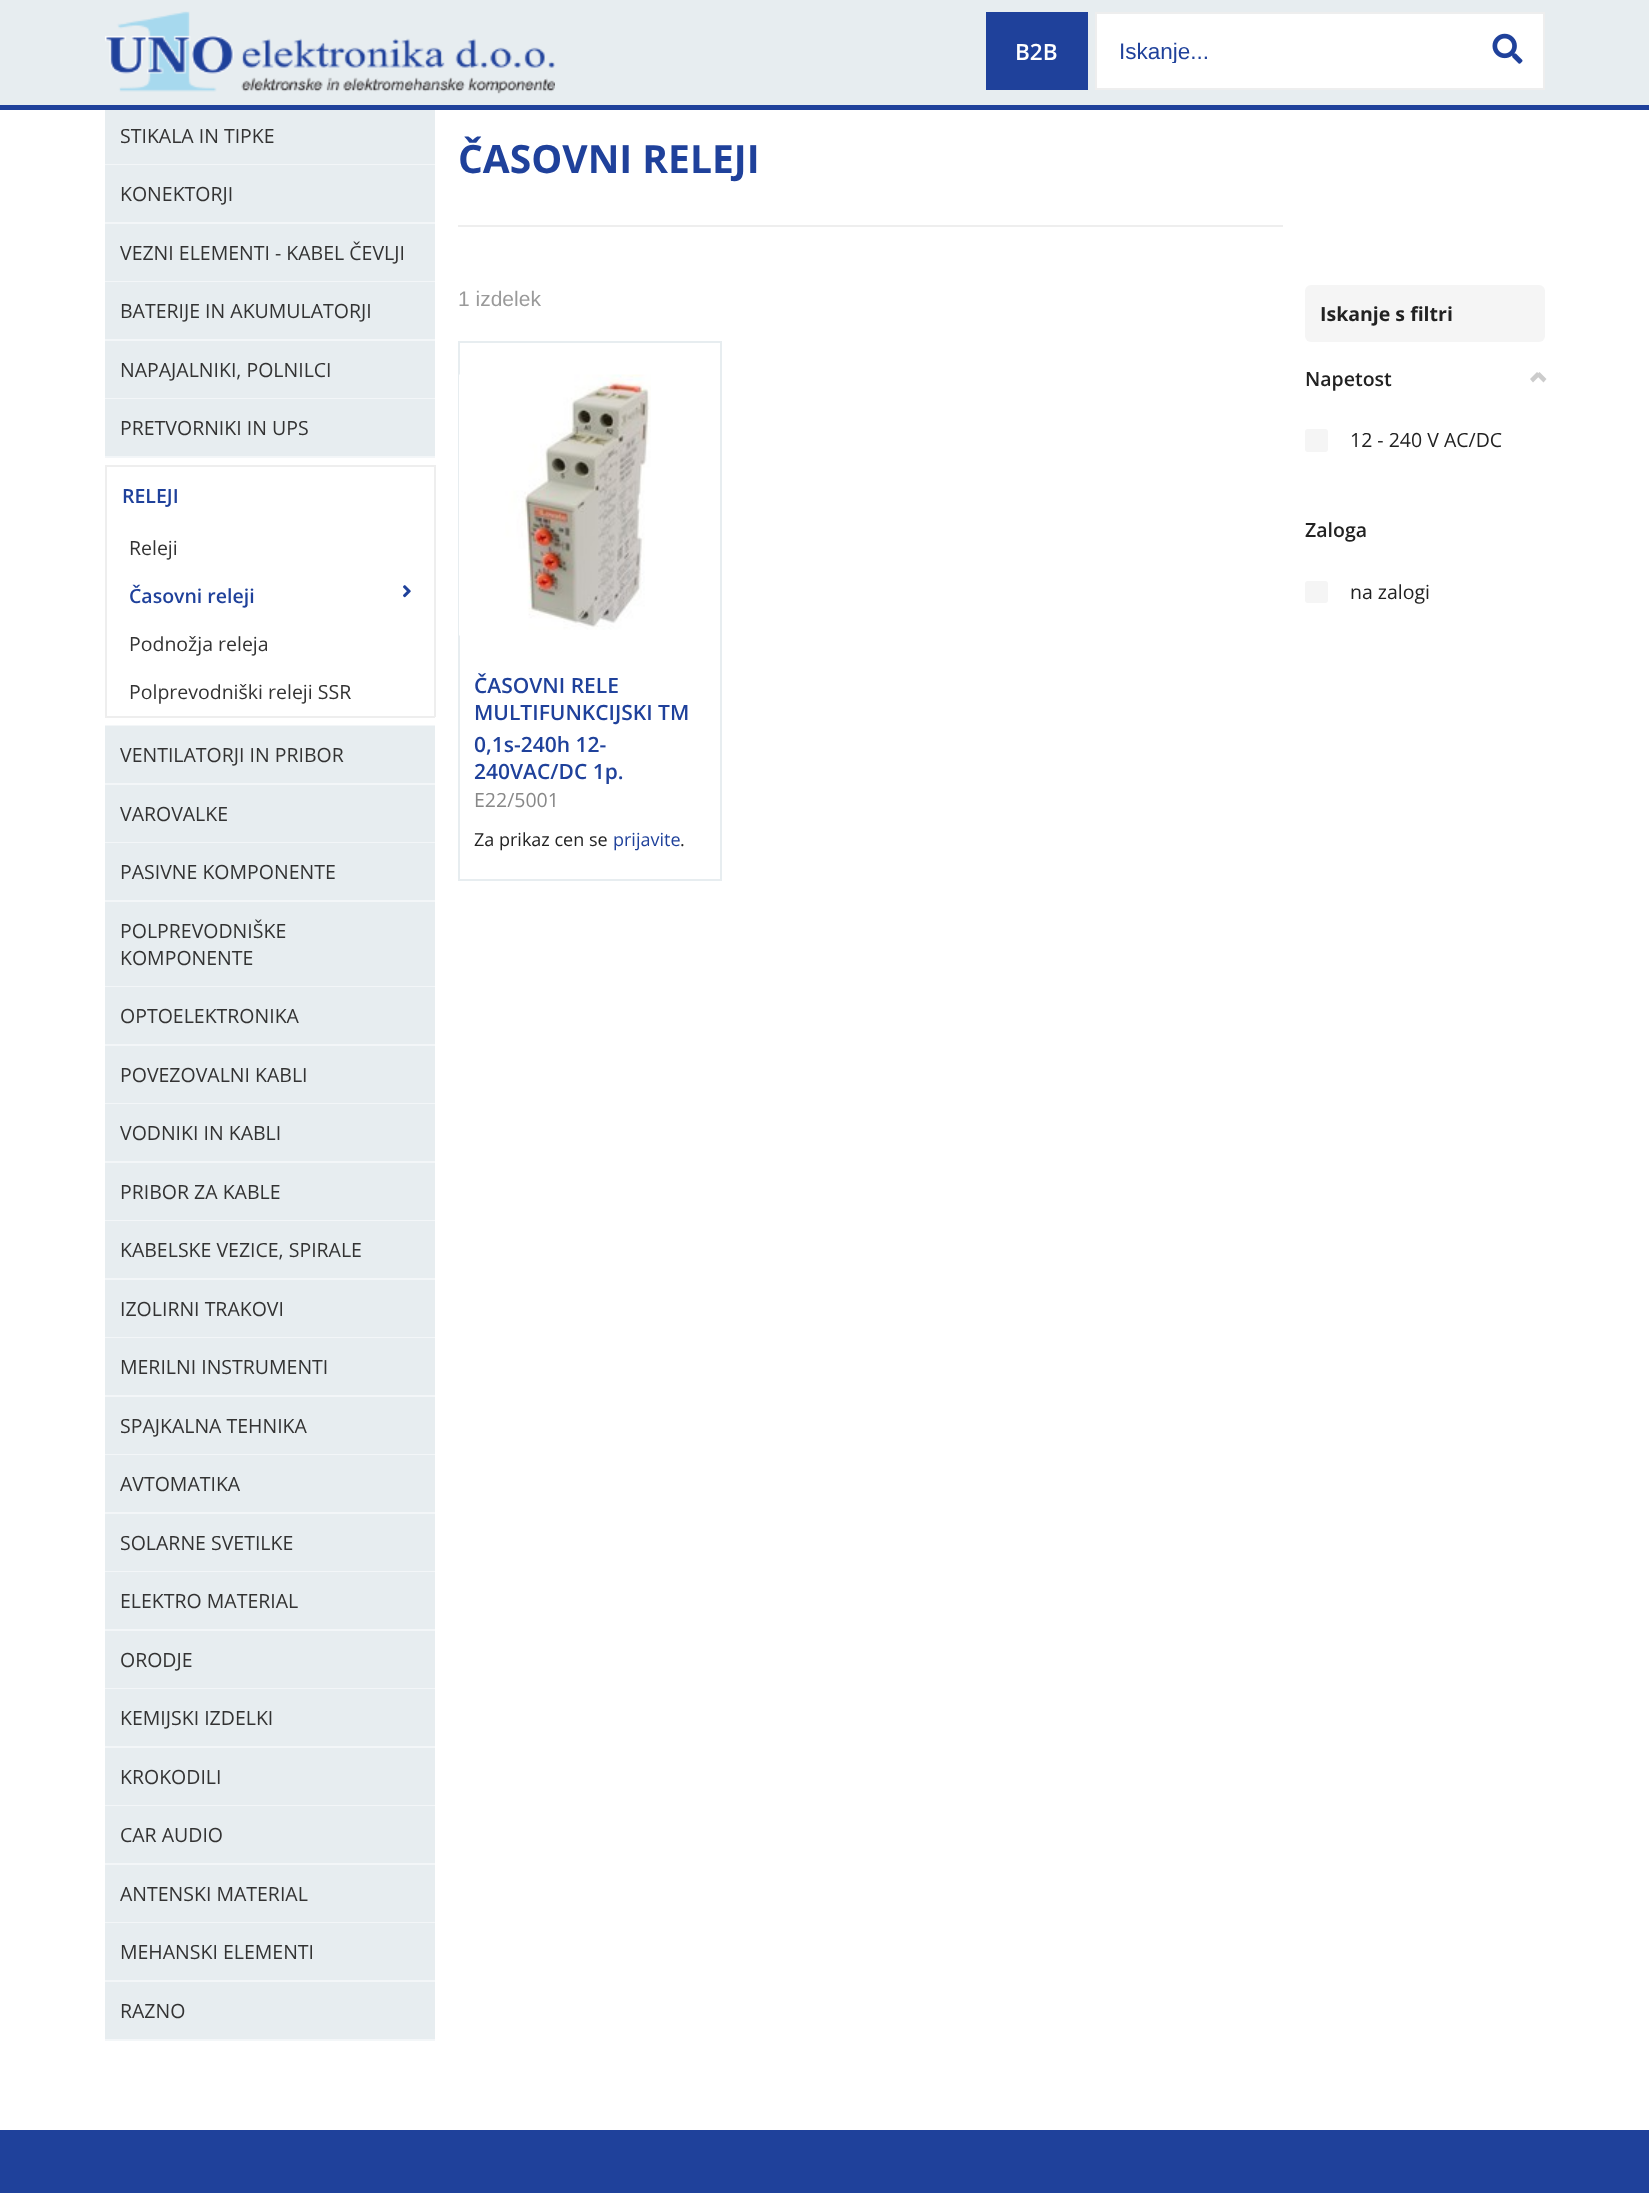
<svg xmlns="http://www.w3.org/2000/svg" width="1649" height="2193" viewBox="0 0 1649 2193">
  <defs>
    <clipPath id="clip1"><rect x="1119" y="38" width="350" height="25"/></clipPath>
  </defs>
  <rect width="100%" height="100%" fill="#1f419b"/>
  <rect x="0" y="0" width="1649" height="105" fill="#e7edf0"/>
  <image x="105" y="11" width="450" height="83" href="img1.png"/>
  <rect x="986" y="12" width="102" height="78" fill="#1f419b"/>
  <text x="1015" y="60" font-family="Open Sans" font-size="22.5" font-weight="600" fill="#ffffff">B2B</text>
  <rect x="1096" y="13" width="448" height="76" fill="#ffffff" stroke="#eeeeee" stroke-width="2"/>
  <g clip-path="url(#clip1)">
    <text x="1119" y="59" font-family="Liberation Sans" font-size="22.5" fill="#1f419b">Iskanje...</text>
  </g>
  <image x="1492" y="33" width="31" height="31" href="img2.png"/>
  <rect x="0" y="110" width="1649" height="2020" fill="#ffffff"/>
  <rect x="105" y="164" width="330" height="1" fill="#f3f6f8"/>
  <rect x="105" y="110" width="330" height="54" fill="#e7edf0"/>
  <text x="120" y="143" font-family="Open Sans" font-size="19.5" fill="#333333">STIKALA IN TIPKE</text>
  <rect x="105" y="222" width="330" height="2" fill="#f3f6f8"/>
  <rect x="105" y="165" width="330" height="57" fill="#e7edf0"/>
  <text x="120" y="201" font-family="Open Sans" font-size="19.5" fill="#333333">KONEKTORJI</text>
  <rect x="105" y="281" width="330" height="1" fill="#f3f6f8"/>
  <rect x="105" y="224" width="330" height="57" fill="#e7edf0"/>
  <text x="120" y="260" font-family="Open Sans" font-size="19.5" fill="#333333">VEZNI ELEMENTI - KABEL ČEVLJI</text>
  <rect x="105" y="339" width="330" height="2" fill="#f3f6f8"/>
  <rect x="105" y="282" width="330" height="57" fill="#e7edf0"/>
  <text x="120" y="318" font-family="Open Sans" font-size="19.5" fill="#333333">BATERIJE IN AKUMULATORJI</text>
  <rect x="105" y="398" width="330" height="1" fill="#f3f6f8"/>
  <rect x="105" y="341" width="330" height="57" fill="#e7edf0"/>
  <text x="120" y="377" font-family="Open Sans" font-size="19.5" fill="#333333">NAPAJALNIKI, POLNILCI</text>
  <rect x="105" y="456" width="330" height="2" fill="#f3f6f8"/>
  <rect x="105" y="399" width="330" height="57" fill="#e7edf0"/>
  <text x="120" y="435" font-family="Open Sans" font-size="19.5" fill="#333333">PRETVORNIKI IN UPS</text>
  <rect x="105" y="725" width="330" height="1" fill="#f3f6f8"/>
  <rect x="105" y="465" width="330" height="2" fill="#eeeeee"/>
  <rect x="434" y="465" width="2" height="252" fill="#eeeeee"/>
  <rect x="105" y="465" width="2" height="59" fill="#eeeeee"/>
  <text x="122" y="503" font-family="Open Sans" font-size="19.5" font-weight="600" fill="#1f419b">RELEJI</text>
  <rect x="105" y="716" width="330" height="2" fill="#eeeeee"/>
  <rect x="105" y="524" width="2" height="193" fill="#eeeeee"/>
  <text x="129" y="555" font-family="Open Sans" font-size="19.5" fill="#333333">Releji</text>
  <text x="129" y="603" font-family="Open Sans" font-size="19.5" font-weight="600" fill="#1f419b">Časovni releji</text>
  <image x="403" y="585" width="8" height="13" href="img3.png"/>
  <text x="129" y="651" font-family="Open Sans" font-size="19.5" fill="#333333">Podnožja releja</text>
  <text x="129" y="699" font-family="Open Sans" font-size="19.5" fill="#333333">Polprevodniški releji SSR</text>
  <rect x="105" y="783" width="330" height="2" fill="#f3f6f8"/>
  <rect x="105" y="726" width="330" height="57" fill="#e7edf0"/>
  <text x="120" y="762" font-family="Open Sans" font-size="19.5" fill="#333333">VENTILATORJI IN PRIBOR</text>
  <rect x="105" y="842" width="330" height="1" fill="#f3f6f8"/>
  <rect x="105" y="785" width="330" height="57" fill="#e7edf0"/>
  <text x="120" y="821" font-family="Open Sans" font-size="19.5" fill="#333333">VAROVALKE</text>
  <rect x="105" y="900" width="330" height="2" fill="#f3f6f8"/>
  <rect x="105" y="843" width="330" height="57" fill="#e7edf0"/>
  <text x="120" y="879" font-family="Open Sans" font-size="19.5" fill="#333333">PASIVNE KOMPONENTE</text>
  <rect x="105" y="986" width="330" height="1" fill="#f3f6f8"/>
  <rect x="105" y="902" width="330" height="84" fill="#e7edf0"/>
  <text x="120" y="938" font-family="Open Sans" font-size="19.5" fill="#333333">POLPREVODNIŠKE</text>
  <text x="120" y="965" font-family="Open Sans" font-size="19.5" fill="#333333">KOMPONENTE</text>
  <rect x="105" y="1044" width="330" height="2" fill="#f3f6f8"/>
  <rect x="105" y="987" width="330" height="57" fill="#e7edf0"/>
  <text x="120" y="1023" font-family="Open Sans" font-size="19.5" fill="#333333">OPTOELEKTRONIKA</text>
  <rect x="105" y="1103" width="330" height="1" fill="#f3f6f8"/>
  <rect x="105" y="1046" width="330" height="57" fill="#e7edf0"/>
  <text x="120" y="1082" font-family="Open Sans" font-size="19.5" fill="#333333">POVEZOVALNI KABLI</text>
  <rect x="105" y="1161" width="330" height="2" fill="#f3f6f8"/>
  <rect x="105" y="1104" width="330" height="57" fill="#e7edf0"/>
  <text x="120" y="1140" font-family="Open Sans" font-size="19.5" fill="#333333">VODNIKI IN KABLI</text>
  <rect x="105" y="1220" width="330" height="1" fill="#f3f6f8"/>
  <rect x="105" y="1163" width="330" height="57" fill="#e7edf0"/>
  <text x="120" y="1199" font-family="Open Sans" font-size="19.5" fill="#333333">PRIBOR ZA KABLE</text>
  <rect x="105" y="1278" width="330" height="2" fill="#f3f6f8"/>
  <rect x="105" y="1221" width="330" height="57" fill="#e7edf0"/>
  <text x="120" y="1257" font-family="Open Sans" font-size="19.5" fill="#333333">KABELSKE VEZICE, SPIRALE</text>
  <rect x="105" y="1337" width="330" height="1" fill="#f3f6f8"/>
  <rect x="105" y="1280" width="330" height="57" fill="#e7edf0"/>
  <text x="120" y="1316" font-family="Open Sans" font-size="19.5" fill="#333333">IZOLIRNI TRAKOVI</text>
  <rect x="105" y="1395" width="330" height="2" fill="#f3f6f8"/>
  <rect x="105" y="1338" width="330" height="57" fill="#e7edf0"/>
  <text x="120" y="1374" font-family="Open Sans" font-size="19.5" fill="#333333">MERILNI INSTRUMENTI</text>
  <rect x="105" y="1454" width="330" height="1" fill="#f3f6f8"/>
  <rect x="105" y="1397" width="330" height="57" fill="#e7edf0"/>
  <text x="120" y="1433" font-family="Open Sans" font-size="19.5" fill="#333333">SPAJKALNA TEHNIKA</text>
  <rect x="105" y="1512" width="330" height="2" fill="#f3f6f8"/>
  <rect x="105" y="1455" width="330" height="57" fill="#e7edf0"/>
  <text x="120" y="1491" font-family="Open Sans" font-size="19.5" fill="#333333">AVTOMATIKA</text>
  <rect x="105" y="1571" width="330" height="1" fill="#f3f6f8"/>
  <rect x="105" y="1514" width="330" height="57" fill="#e7edf0"/>
  <text x="120" y="1550" font-family="Open Sans" font-size="19.5" fill="#333333">SOLARNE SVETILKE</text>
  <rect x="105" y="1629" width="330" height="2" fill="#f3f6f8"/>
  <rect x="105" y="1572" width="330" height="57" fill="#e7edf0"/>
  <text x="120" y="1608" font-family="Open Sans" font-size="19.5" fill="#333333">ELEKTRO MATERIAL</text>
  <rect x="105" y="1688" width="330" height="1" fill="#f3f6f8"/>
  <rect x="105" y="1631" width="330" height="57" fill="#e7edf0"/>
  <text x="120" y="1667" font-family="Open Sans" font-size="19.5" fill="#333333">ORODJE</text>
  <rect x="105" y="1746" width="330" height="2" fill="#f3f6f8"/>
  <rect x="105" y="1689" width="330" height="57" fill="#e7edf0"/>
  <text x="120" y="1725" font-family="Open Sans" font-size="19.5" fill="#333333">KEMIJSKI IZDELKI</text>
  <rect x="105" y="1805" width="330" height="1" fill="#f3f6f8"/>
  <rect x="105" y="1748" width="330" height="57" fill="#e7edf0"/>
  <text x="120" y="1784" font-family="Open Sans" font-size="19.5" fill="#333333">KROKODILI</text>
  <rect x="105" y="1863" width="330" height="2" fill="#f3f6f8"/>
  <rect x="105" y="1806" width="330" height="57" fill="#e7edf0"/>
  <text x="120" y="1842" font-family="Open Sans" font-size="19.5" fill="#333333">CAR AUDIO</text>
  <rect x="105" y="1922" width="330" height="1" fill="#f3f6f8"/>
  <rect x="105" y="1865" width="330" height="57" fill="#e7edf0"/>
  <text x="120" y="1901" font-family="Open Sans" font-size="19.5" fill="#333333">ANTENSKI MATERIAL</text>
  <rect x="105" y="1980" width="330" height="2" fill="#f3f6f8"/>
  <rect x="105" y="1923" width="330" height="57" fill="#e7edf0"/>
  <text x="120" y="1959" font-family="Open Sans" font-size="19.5" fill="#333333">MEHANSKI ELEMENTI</text>
  <rect x="105" y="2039" width="330" height="2" fill="#f3f6f8"/>
  <rect x="105" y="1982" width="330" height="57" fill="#e7edf0"/>
  <text x="120" y="2018" font-family="Open Sans" font-size="19.5" fill="#333333">RAZNO</text>
  <rect x="458" y="225" width="825" height="2" fill="#eeeeee"/>
  <text x="458" y="173" font-family="Open Sans" font-size="39" font-weight="bold" fill="#1f419b">ČASOVNI RELEJI</text>
  <text x="458" y="306" font-family="Liberation Sans" font-size="21" fill="#9a9a9a">1 izdelek</text>
  <rect x="459" y="342" width="262" height="538" fill="none" stroke="#e7edf0" stroke-width="2"/>
  <image x="459" y="374" width="192" height="262" href="img4.png"/>
  <text x="474" y="693" font-family="Open Sans" font-size="21" font-weight="600" fill="#1f419b">ČASOVNI RELE</text>
  <text x="474" y="720" font-family="Open Sans" font-size="21" font-weight="600" fill="#1f419b">MULTIFUNKCIJSKI TM</text>
  <text x="474" y="752" font-family="Open Sans" font-size="21" font-weight="600" fill="#1f419b">0,1s-240h 12-</text>
  <text x="474" y="779" font-family="Open Sans" font-size="21" font-weight="600" fill="#1f419b">240VAC/DC 1p.</text>
  <text x="474" y="807" font-family="Open Sans" font-size="19.5" fill="#888888">E22/5001</text>
  <text x="474" y="846" font-family="Open Sans" font-size="18" fill="#222222">Za prikaz cen se</text>
  <text x="613" y="846" font-family="Open Sans" font-size="18" fill="#1f419b">prijavite</text>
  <text x="680" y="846" font-family="Open Sans" font-size="18" fill="#222222">.</text>
  <rect x="1305" y="285" width="240" height="57" rx="6" fill="#f5f5f5"/>
  <text x="1320" y="321" font-family="Open Sans" font-size="19.5" font-weight="bold" fill="#222222">Iskanje s filtri</text>
  <text x="1305" y="386" font-family="Open Sans" font-size="19.5" font-weight="600" fill="#222222">Napetost</text>
  <path d="M1533 382.5L1530 379L1537 372L1540.5 375Z" fill="#cccccc"/>
  <path d="M1543.5 382.5L1536 375L1539.5 372L1546.5 379Z" fill="#cccccc"/>
  <rect x="1305" y="429" width="23" height="23" rx="3" fill="#f5f5f5"/>
  <text x="1350" y="447" font-family="Open Sans" font-size="19.5" fill="#222222">12 - 240 V AC/DC</text>
  <text x="1305" y="537" font-family="Open Sans" font-size="19.5" font-weight="600" fill="#222222">Zaloga</text>
  <rect x="1305" y="581" width="23" height="22" rx="3" fill="#f5f5f5"/>
  <text x="1350" y="599" font-family="Open Sans" font-size="19.5" fill="#222222">na zalogi</text>
</svg>
